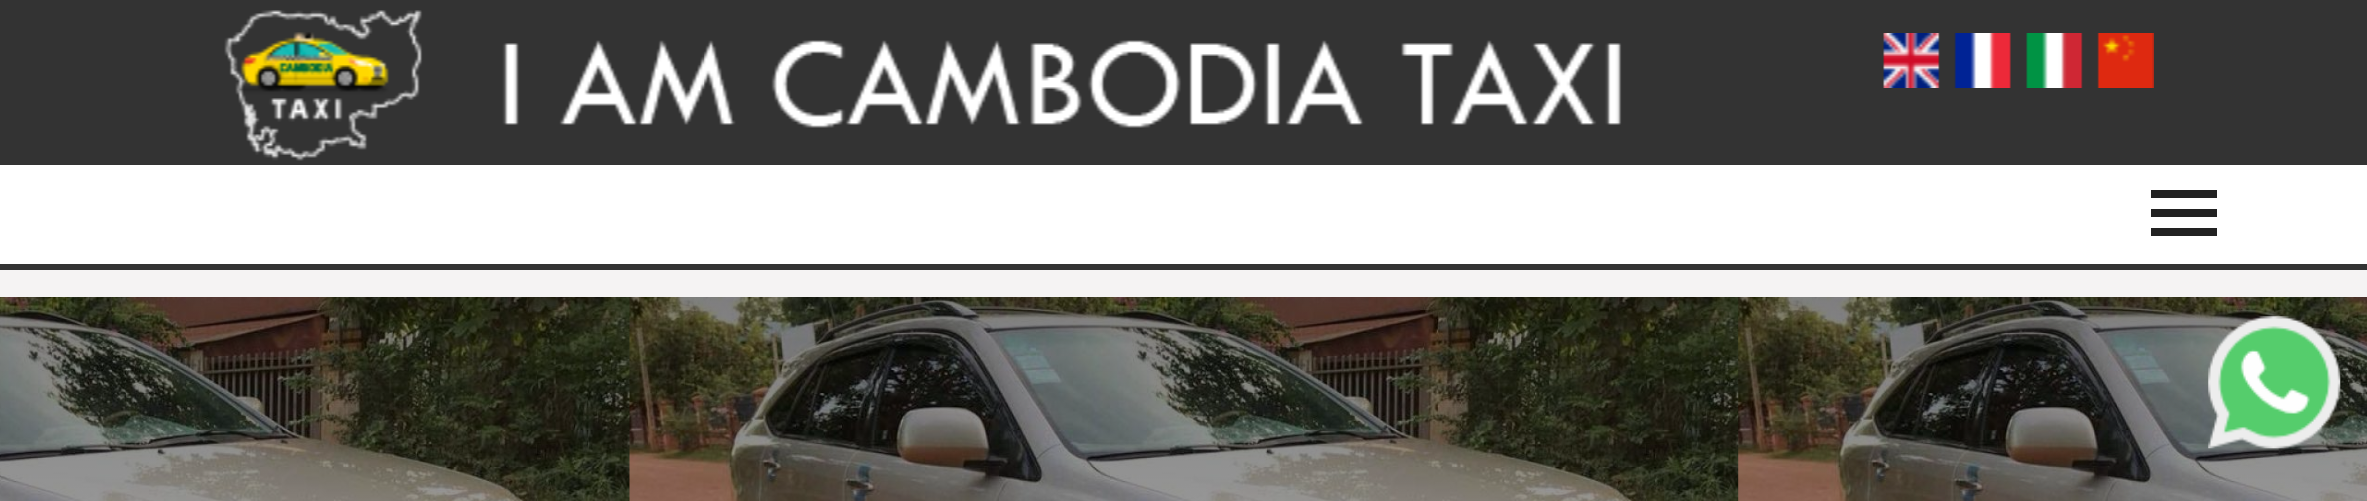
<svg xmlns="http://www.w3.org/2000/svg" width="2367" height="501" viewBox="0 0 2367 501">
  <rect width="100%" height="100%" fill="#f5f3f3"/>
  <rect x="0" y="165" width="2367" height="99" fill="#ffffff"/>
  <rect x="0" y="264" width="2367" height="6" fill="#333333"/>
  <rect x="0" y="0" width="2367" height="165" fill="#333333"/>
  <image x="224" y="10" width="1398" height="151" href="img1.png"/>
  <image x="1883" y="33" width="57" height="55" href="img2.png"/>
  <image x="1954" y="33" width="57" height="55" href="img3.png"/>
  <image x="2026" y="33" width="57" height="55" href="img4.png"/>
  <image x="2097" y="33" width="57" height="55" href="img5.png"/>
  <rect x="2151" y="209" width="66" height="8" fill="#222222"/>
  <rect x="2151" y="190" width="66" height="8" fill="#222222"/>
  <rect x="2151" y="228" width="66" height="8" fill="#222222"/>
  <image x="0" y="297" width="2367" height="204" href="img6.png"/>
  <image x="2208" y="316" width="133" height="133" href="img7.png"/>
</svg>
